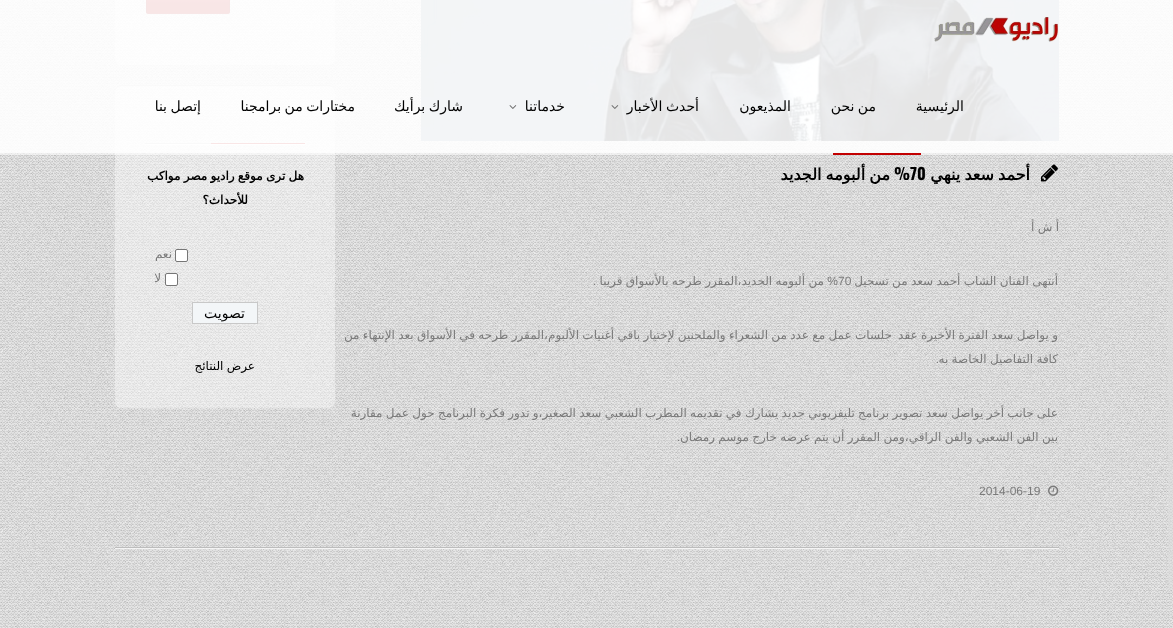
<svg xmlns="http://www.w3.org/2000/svg" width="1173" height="628" viewBox="0 0 1173 628">
  <defs>
    <linearGradient id="g1" gradientUnits="userSpaceOnUse" x1="147" y1="13" x2="147" y2="-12"><stop offset="0" stop-color="#000000" stop-opacity="0.08"/><stop offset="0.5" stop-color="#808080" stop-opacity="0.08"/><stop offset="1" stop-color="#ffffff" stop-opacity="0.08"/></linearGradient>
    <linearGradient id="g2" gradientUnits="userSpaceOnUse" x1="147" y1="38" x2="147" y2="13"><stop offset="0" stop-color="#000000" stop-opacity="0.08"/><stop offset="0.5" stop-color="#808080" stop-opacity="0.08"/><stop offset="1" stop-color="#ffffff" stop-opacity="0.08"/></linearGradient>
  </defs>
  <rect width="100%" height="100%" fill="#ffffff"/>
  <image x="0" y="0" width="1173" height="628" href="img1.png"/>
  <rect x="1168" y="216" width="5" height="374" rx="2" fill="#dddddd" fill-opacity="0.53"/>
  <path d="M115 402V403C115 406 118 409 121 409H329C332 409 335 406 335 403V402C335 405 332 408 329 408H121C118 408 115 405 115 402Z" fill="#ffffff" fill-opacity="0.04"/>
  <rect x="115" y="85" width="220" height="323" rx="6" fill="#ffffff" fill-opacity="0.4"/>
  <rect x="0" y="153" width="1173" height="2" fill="#ffffff" fill-opacity="0.5"/>
  <image x="421" y="0" width="638" height="141" href="img5.png"/>
  <path d="M115 59V60C115 63 118 66 121 66H329C332 66 335 63 335 60V59C335 62 332 65 329 65H121C118 65 115 62 115 59Z" fill="#ffffff" fill-opacity="0.04"/>
  <rect x="115" y="-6" width="220" height="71" rx="6" fill="#ffffff" fill-opacity="0.4"/>
  <rect x="146" y="-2" width="84" height="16" rx="2" fill="#c20001"/>
  <rect x="146" y="0" width="84" height="13" fill="url(#g1)"/>
  <rect x="146" y="13" width="84" height="1" fill="url(#g2)"/>
  <rect x="146.5" y="-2.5" width="83" height="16" rx="1.5" fill="none" stroke="#000000" stroke-opacity="0.1"/>
  <path d="M121 86H329C332 86 335 89 335 92V91C335 88 332 85 329 85H121C118 85 115 88 115 91V92C115 89 118 86 121 86Z" fill="#000000" fill-opacity="0.15"/>
  <rect x="145" y="144" width="160" height="1" fill="#ffffff" fill-opacity="0.75"/>
  <rect x="145" y="143" width="66" height="1" fill="#bdbdbd"/>
  <rect x="211" y="143" width="94" height="1" fill="#c20001"/>
  <rect x="0" y="0" width="1173" height="153" fill="#ffffff" fill-opacity="0.9"/>
  <image x="934" y="17" width="124" height="25" href="img2.png"/>
  <text x="964" y="111" font-family="DejaVu Sans" font-size="14" direction="rtl" fill="#000000">الرئيسية</text>
  <text x="876" y="111" word-spacing="-1" font-family="DejaVu Sans" font-size="14" direction="rtl" fill="#000000">من نحن</text>
  <text x="791" y="111" font-family="DejaVu Sans" font-size="14" direction="rtl" fill="#000000">المذيعون</text>
  <text x="699" y="111" word-spacing="-1" font-family="DejaVu Sans" font-size="14" direction="rtl" fill="#000000">أحدث الأخبار</text>
  <image x="611" y="105" width="8" height="4" href="img3.png"/>
  <text x="565" y="111" font-family="DejaVu Sans" font-size="14" direction="rtl" fill="#000000">خدماتنا</text>
  <image x="509" y="105" width="8" height="4" href="img4.png"/>
  <text x="463" y="111" word-spacing="-1" font-family="DejaVu Sans" font-size="14" direction="rtl" fill="#000000">شارك برأيك</text>
  <text x="355" y="111" word-spacing="-1" font-family="DejaVu Sans" font-size="14" direction="rtl" fill="#000000">مختارات من برامجنا</text>
  <text x="201" y="111" word-spacing="-1" font-family="DejaVu Sans" font-size="14" direction="rtl" fill="#000000">إتصل بنا</text>
  <rect x="833" y="153" width="88" height="2" fill="#c20001"/>
  <rect x="115" y="548" width="944" height="1" fill="#ffffff" fill-opacity="0.75"/>
  <rect x="115" y="547" width="944" height="1" fill="#bdbdbd"/>
  <image x="1041" y="164" width="17" height="18" href="img6.png"/>
  <text x="1030" y="180" word-spacing="-1" font-family="DejaVu Sans" font-size="16" font-weight="bold" direction="rtl" fill="#000000">أحمد سعد ينهي</text>
  <text x="910" y="180" font-family="Oswald" font-size="16" font-weight="bold" fill="#000000">70</text>
  <text x="910" y="180" font-family="Oswald" font-size="16" font-weight="bold" direction="rtl" fill="#000000">%</text>
  <text x="890" y="180" word-spacing="-1" font-family="DejaVu Sans" font-size="16" font-weight="bold" direction="rtl" fill="#000000">من ألبومه الجديد</text>
  <text x="1059" y="231" word-spacing="-0.5" font-family="DejaVu Sans" font-size="12" direction="rtl" fill="#7a7a7a">أ ش أ</text>
  <text x="1058" y="285" word-spacing="-0.5" font-family="DejaVu Sans" font-size="12" direction="rtl" fill="#7a7a7a">أنتهى الفنان الشاب أحمد سعد من تسجيل</text>
  <text x="838" y="285" font-family="Liberation Sans" font-size="12" fill="#7a7a7a">70</text>
  <text x="838" y="285" font-family="Liberation Sans" font-size="12" direction="rtl" fill="#7a7a7a">%</text>
  <text x="824" y="285" word-spacing="-0.5" font-family="DejaVu Sans" font-size="12" direction="rtl" fill="#7a7a7a">من ألبومه الجديد،المقرر طرحه بالأسواق قريبا</text>
  <text x="596" y="285" font-family="Liberation Sans" font-size="12" direction="rtl" fill="#7a7a7a">.</text>
  <text x="1058" y="339" word-spacing="-0.5" font-family="DejaVu Sans" font-size="12" direction="rtl" fill="#7a7a7a">و يواصل سعد الفترة الأخيرة عقد</text>
  <text x="892" y="339" word-spacing="-0.5" font-family="DejaVu Sans" font-size="12" direction="rtl" fill="#7a7a7a">جلسات عمل مع عدد من الشعراء والملحنين لإختيار باقي أغنيات الألبوم،المقرر طرحه في الأسواق بعد الإنتهاء من</text>
  <text x="1058" y="363" word-spacing="-0.5" font-family="DejaVu Sans" font-size="12" direction="rtl" fill="#7a7a7a">كافة التفاصيل الخاصة به</text>
  <text x="939" y="363" font-family="Liberation Sans" font-size="12" direction="rtl" fill="#7a7a7a">.</text>
  <text x="1058" y="417" word-spacing="-0.5" font-family="DejaVu Sans" font-size="12" direction="rtl" fill="#7a7a7a">على جانب أخر يواصل سعد تصوير برنامج تليفزيوني جديد يشارك في تقديمه المطرب الشعبي سعد الصغير،و تدور فكرة البرنامج حول عمل مقارنة</text>
  <text x="1058" y="441" word-spacing="-0.5" font-family="DejaVu Sans" font-size="12" direction="rtl" fill="#7a7a7a">بين الفن الشعبي والفن الراقي،ومن المقرر أن يتم عرضه خارج موسم رمضان</text>
  <text x="680" y="441" font-family="Liberation Sans" font-size="12" direction="rtl" fill="#7a7a7a">.</text>
  <image x="1048" y="485" width="11" height="11" href="img7.png"/>
  <text x="979" y="495" font-family="Liberation Sans" font-size="12" fill="#7a7a7a">2014-06-19</text>
  <text x="304" y="180" word-spacing="-0.5" font-family="DejaVu Sans" font-size="12" font-weight="bold" direction="rtl" fill="#000000">هل ترى موقع راديو مصر مواكب</text>
  <text x="248" y="204" font-family="DejaVu Sans" font-size="12" font-weight="bold" direction="rtl" fill="#000000">للأحداث؟</text>
  <rect x="175.5" y="249.5" width="12" height="12" rx="1.5" fill="#ffffff" stroke="#767676"/>
  <text x="172" y="258" font-family="DejaVu Sans" font-size="12" direction="rtl" fill="#7a7a7a">نعم</text>
  <rect x="165.5" y="273.5" width="12" height="12" rx="1.5" fill="#ffffff" stroke="#767676"/>
  <text x="161" y="282" font-family="DejaVu Sans" font-size="12" direction="rtl" fill="#7a7a7a">لا</text>
  <rect x="192.5" y="302.5" width="65" height="21" fill="#f3f6f8" stroke="#c8c8c8"/>
  <text x="245" y="318" font-family="DejaVu Sans" font-size="14" direction="rtl" fill="#000000">تصويت</text>
  <text x="255" y="370" word-spacing="-0.5" font-family="DejaVu Sans" font-size="12" direction="rtl" fill="#000000">عرض النتائج</text>
</svg>
